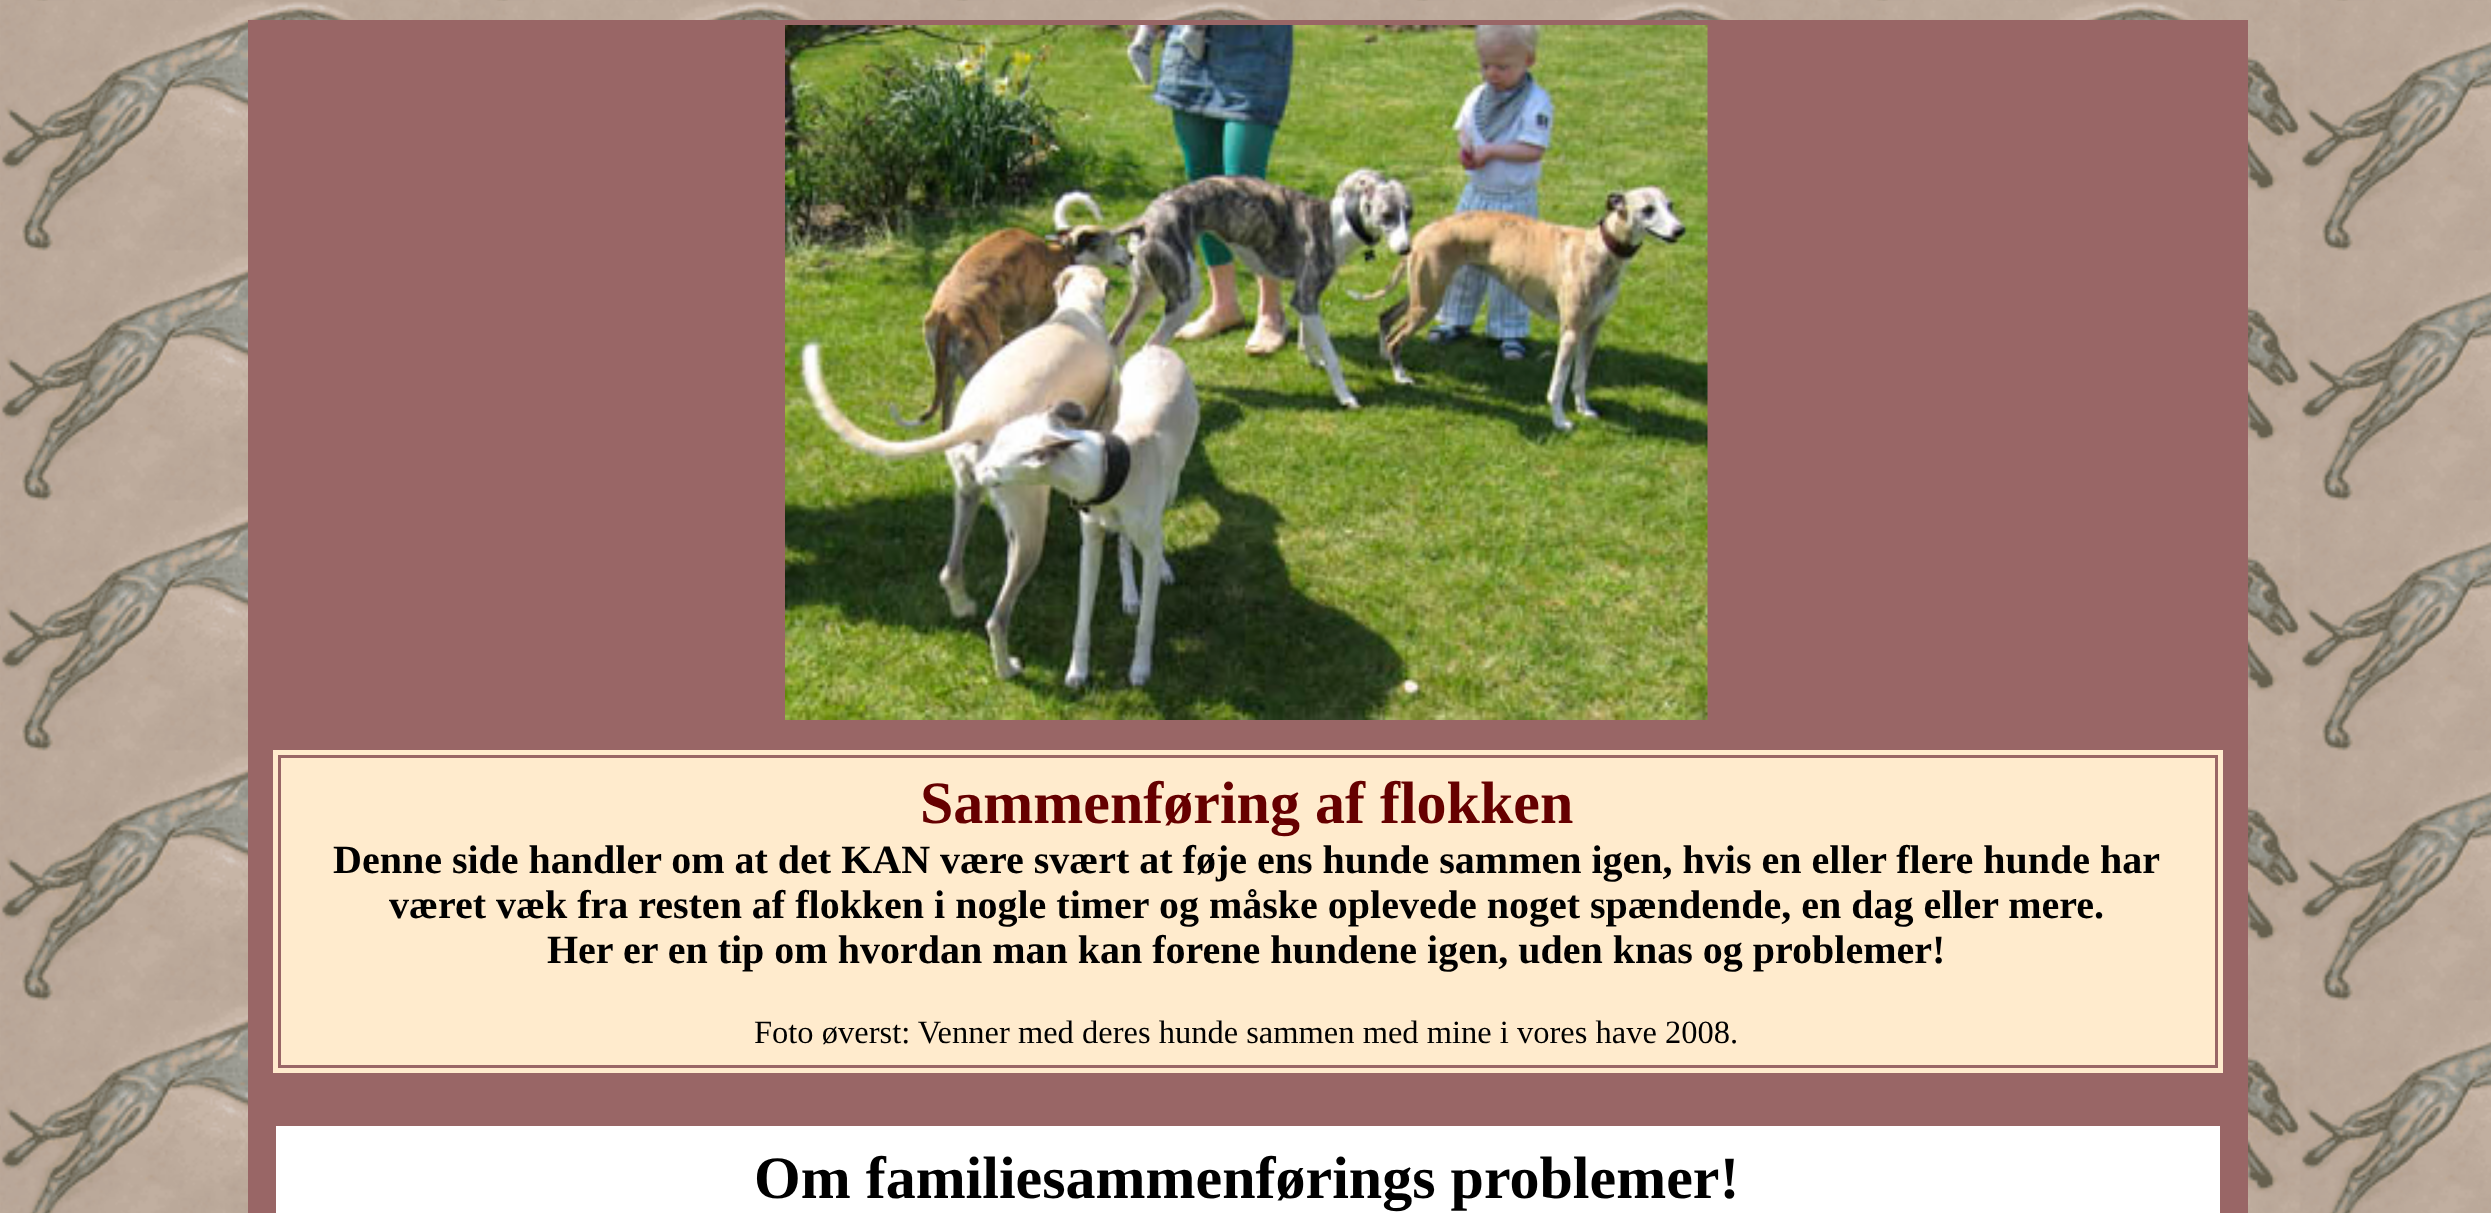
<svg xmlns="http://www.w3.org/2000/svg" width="2491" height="1213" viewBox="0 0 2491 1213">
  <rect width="100%" height="100%" fill="#ffffff"/>
  <image x="0" y="0" width="2491" height="1213" href="img1.png"/>
  <rect x="248" y="20" width="2000" height="705" fill="#996666"/>
  <image x="785" y="25" width="923" height="695" href="img2.png"/>
  <rect x="260.5" y="737.5" width="1975" height="348" fill="#ffebcd" stroke="#996666" stroke-width="25"/>
  <rect x="279.5" y="756.5" width="1937" height="310" fill="none" stroke="#996666" stroke-width="3"/>
  <text x="920" y="823" font-family="Liberation Serif" font-size="60" font-weight="bold" fill="#660000">Sammenføring af flokken</text>
  <text x="333" y="873" font-family="Liberation Serif" font-size="40" font-weight="bold" fill="#000000">Denne side handler om at det KAN være svært at føje ens hunde sammen igen, hvis en eller flere hunde har</text>
  <text x="389" y="918" font-family="Liberation Serif" font-size="40" font-weight="bold" fill="#000000">været væk fra resten af flokken i nogle timer og måske oplevede noget spændende, en dag eller mere.</text>
  <text x="547" y="963" font-family="Liberation Serif" font-size="40" font-weight="bold" fill="#000000">Her er en tip om hvordan man kan forene hundene igen, uden knas og problemer!</text>
  <text x="754" y="1043" font-family="Liberation Serif" font-size="32.5" fill="#000000">Foto øverst: Venner med deres hunde sammen med mine i vores have 2008.</text>
  <rect x="276" y="1126" width="1944" height="87" fill="#ffffff"/>
  <rect x="260.5" y="1110.5" width="1975" height="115" fill="none" stroke="#996666" stroke-width="25"/>
  <rect x="274.5" y="1124.5" width="1947" height="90" fill="none" stroke="#996666" stroke-width="3"/>
  <text x="754" y="1198" font-family="Liberation Serif" font-size="60" font-weight="bold" fill="#000000">Om familiesammenførings problemer!</text>
</svg>
